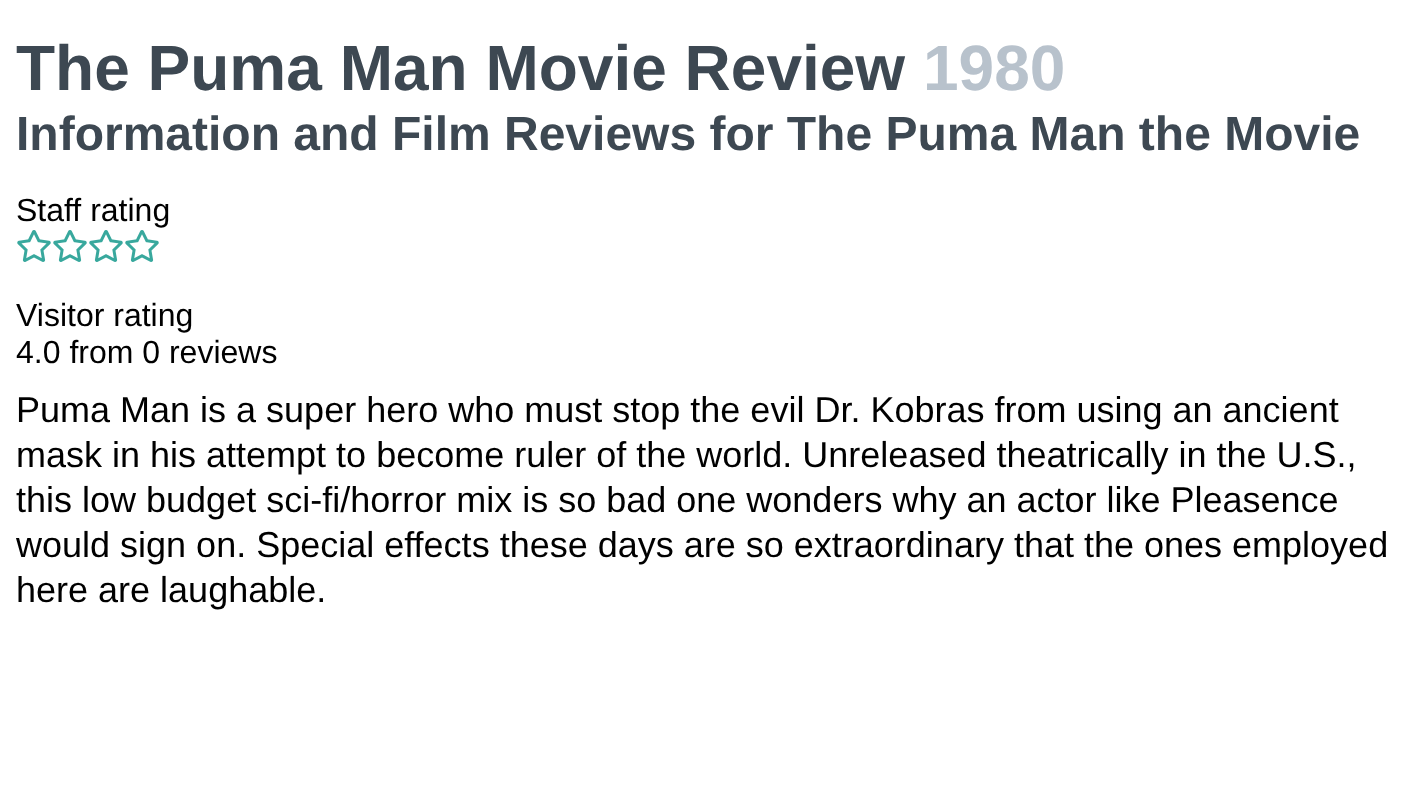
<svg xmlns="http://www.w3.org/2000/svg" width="1416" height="800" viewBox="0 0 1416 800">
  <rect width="100%" height="100%" fill="#ffffff"/>
  <text x="16" y="90" font-family="Liberation Sans" font-size="64" font-weight="bold" fill="#3d4852">The Puma Man Movie Review</text>
  <text x="923" y="90" font-family="Liberation Sans" font-size="64" font-weight="bold" fill="#b8c2cc">1980</text>
  <text x="16" y="150" font-family="Liberation Sans" font-size="48" font-weight="bold" fill="#3d4852">Information and Film Reviews for The Puma Man the Movie</text>
  <text x="16" y="221" font-family="Liberation Sans" font-size="32" fill="#000000">Staff rating</text>
  <image x="17" y="230" width="34" height="32" href="img1.png"/>
  <image x="53" y="230" width="34" height="32" href="img1.png"/>
  <image x="89" y="230" width="34" height="32" href="img1.png"/>
  <image x="125" y="230" width="34" height="32" href="img1.png"/>
  <text x="16" y="326" font-family="Liberation Sans" font-size="32" fill="#000000">Visitor rating</text>
  <text x="16" y="363" font-family="Liberation Sans" font-size="32" fill="#000000">4.0 from 0 reviews</text>
  <text x="16" y="422" font-family="Liberation Sans" font-size="36" fill="#000000">Puma Man is a super hero who must stop the evil Dr. Kobras from using an ancient</text>
  <text x="16" y="467" font-family="Liberation Sans" font-size="36" fill="#000000">mask in his attempt to become ruler of the world. Unreleased theatrically in the U.S.,</text>
  <text x="16" y="512" font-family="Liberation Sans" font-size="36" fill="#000000">this low budget sci-fi/horror mix is so bad one wonders why an actor like Pleasence</text>
  <text x="16" y="557" font-family="Liberation Sans" font-size="36" fill="#000000">would sign on. Special effects these days are so extraordinary that the ones employed</text>
  <text x="16" y="602" font-family="Liberation Sans" font-size="36" fill="#000000">here are laughable.</text>
</svg>
